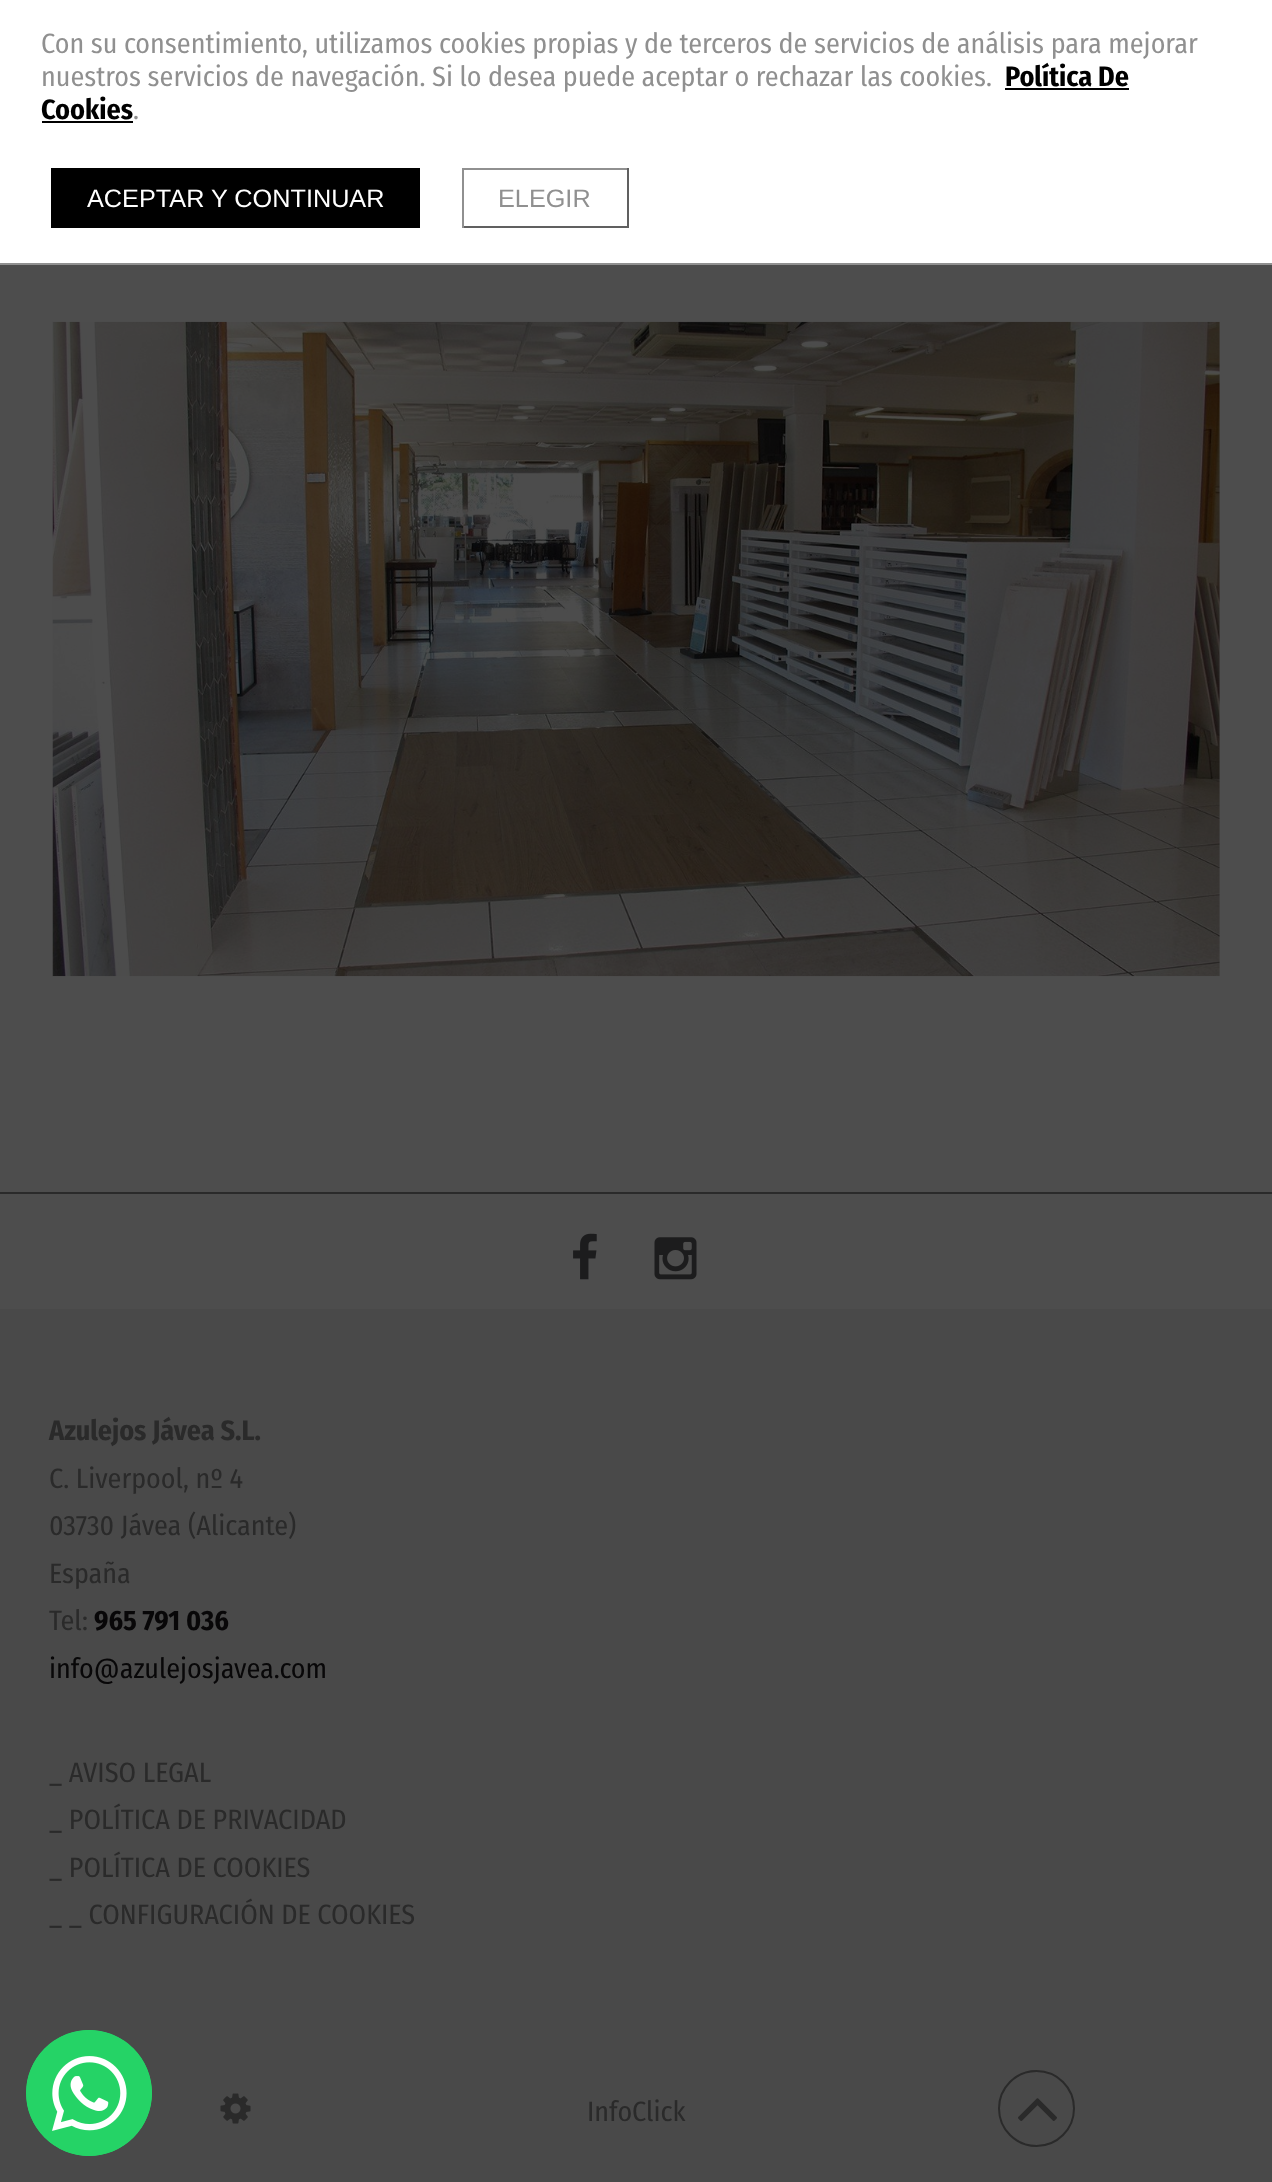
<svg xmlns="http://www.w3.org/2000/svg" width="1272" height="2182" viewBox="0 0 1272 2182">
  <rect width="100%" height="100%" fill="#4d4d4d"/>
  <rect x="0" y="0" width="1272" height="263" fill="#ffffff"/>
  <rect x="0" y="263" width="1272" height="2" fill="#909090"/>
  <text x="41" y="53" font-family="Fira Sans Condensed" font-size="28" fill="#909090">Con su consentimiento, utilizamos cookies propias y de terceros de servicios de análisis para mejorar</text>
  <text x="41" y="86" font-family="Fira Sans Condensed" font-size="28" fill="#909090">nuestros servicios de navegación. Si lo desea puede aceptar o rechazar las cookies.</text>
  <text x="1005" y="86" font-family="Fira Sans Condensed" font-size="28" font-weight="bold" fill="#000000">Política De</text>
  <rect x="1005" y="88" width="124" height="2" fill="#000000"/>
  <text x="41" y="119" font-family="Fira Sans Condensed" font-size="28" font-weight="bold" fill="#000000">Cookies</text>
  <rect x="42" y="121" width="91" height="2" fill="#000000"/>
  <text x="133" y="119" font-family="Fira Sans Condensed" font-size="28" fill="#909090">.</text>
  <rect x="51" y="168" width="369" height="60" fill="#000000"/>
  <text x="87" y="207" font-family="Liberation Sans" font-size="25.25" fill="#ffffff">ACEPTAR Y CONTINUAR</text>
  <rect x="462" y="168" width="166" height="2" fill="#909090"/>
  <rect x="627" y="168" width="2" height="60" fill="#606060"/>
  <rect x="462" y="226" width="166" height="2" fill="#606060"/>
  <rect x="462" y="168" width="2" height="60" fill="#909090"/>
  <text x="498" y="207" font-family="Liberation Sans" font-size="25.25" fill="#909090">ELEGIR</text>
  <image x="52" y="321" width="1168" height="656" href="img1.png"/>
  <rect x="0" y="1309" width="1272" height="873" fill="#494949"/>
  <circle cx="89" cy="2093" r="63" fill="#25d366"/>
  <image x="26" y="2030" width="126" height="126" href="img2.png"/>
  <rect x="0" y="1192" width="1272" height="2" fill="#2a2a2a"/>
  <image x="573" y="1233" width="24" height="47" href="img3.png"/>
  <image x="654" y="1237" width="43" height="43" href="img4.png"/>
  <text x="49" y="1440" font-family="Fira Sans Condensed" font-size="28" font-weight="bold" fill="#2a2a2a">Azulejos Jávea S.L.</text>
  <text x="49" y="1488" font-family="Fira Sans Condensed" font-size="28" fill="#2a2a2a">C. Liverpool, nº 4</text>
  <text x="49" y="1535" font-family="Fira Sans Condensed" font-size="28" fill="#2a2a2a">03730 Jávea (Alicante)</text>
  <text x="49" y="1583" font-family="Fira Sans Condensed" font-size="28" fill="#2a2a2a">España</text>
  <text x="49" y="1630" font-family="Fira Sans Condensed" font-size="28" fill="#2a2a2a">Tel:</text>
  <text x="94" y="1630" font-family="Fira Sans Condensed" font-size="28" font-weight="bold" fill="#080708">965 791 036</text>
  <text x="49" y="1678" font-family="Fira Sans Condensed" font-size="28" fill="#080708">info@azulejosjavea.com</text>
  <text x="49" y="1782" font-family="Fira Sans Condensed" font-size="28" fill="#2a2a2a">_ AVISO LEGAL</text>
  <text x="49" y="1829" font-family="Fira Sans Condensed" font-size="28" fill="#2a2a2a">_ POLÍTICA DE PRIVACIDAD</text>
  <text x="49" y="1877" font-family="Fira Sans Condensed" font-size="28" fill="#2a2a2a">_ POLÍTICA DE COOKIES</text>
  <text x="49" y="1924" font-family="Fira Sans Condensed" font-size="28" fill="#2a2a2a">_ _ CONFIGURACIÓN DE COOKIES</text>
  <image x="220" y="2093" width="31" height="31" href="img5.png"/>
  <text x="587" y="2121" font-family="Fira Sans Condensed" font-size="28" fill="#2a2a2a">InfoClick</text>
  <circle cx="1036.5" cy="2108.5" r="37.5" fill="none" stroke="#2a2a2a" stroke-width="2"/>
  <image x="1018" y="2098" width="39" height="23" href="img6.png"/>
</svg>
